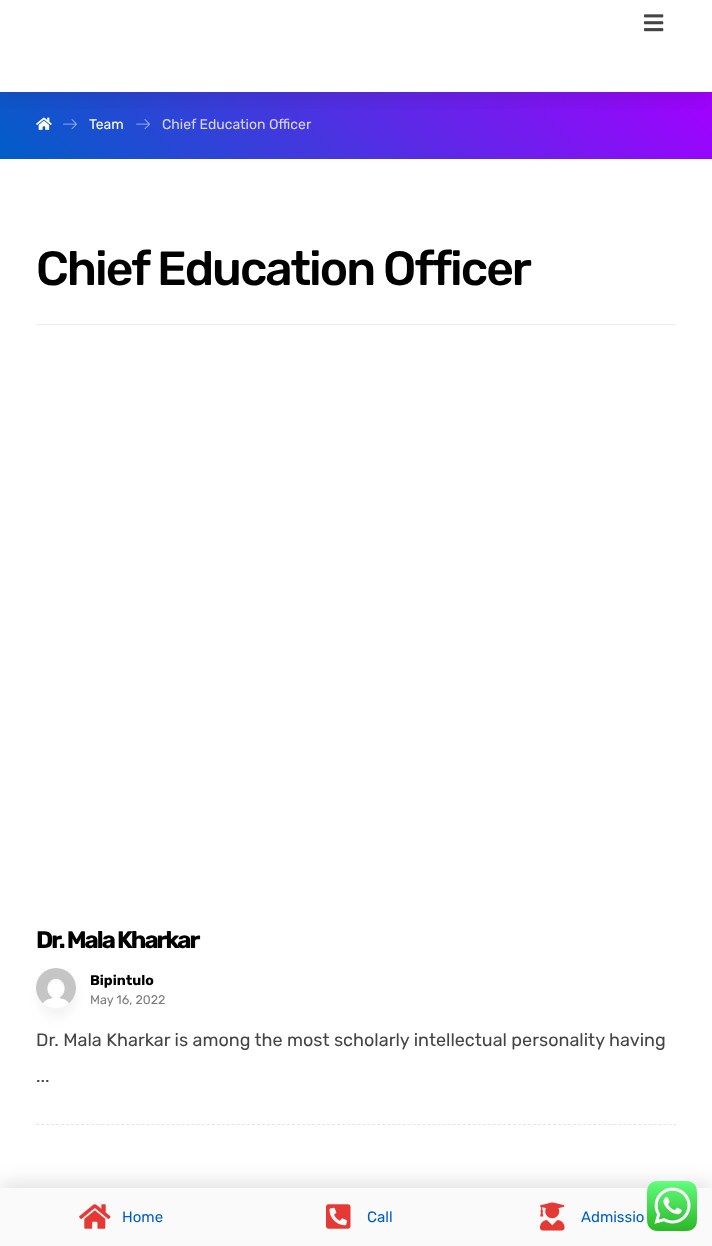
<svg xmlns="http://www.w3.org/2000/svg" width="712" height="1246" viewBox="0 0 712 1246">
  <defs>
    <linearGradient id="g1" gradientUnits="userSpaceOnUse" x1="161" y1="320" x2="551" y2="-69"><stop offset="0" stop-color="#005ec7"/><stop offset="1" stop-color="#a200ff"/></linearGradient>
    <clipPath id="clip1"><rect x="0" y="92" width="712" height="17"/></clipPath>
    <filter id="blur1" x="-50%" y="-200%" width="200%" height="500%"><feGaussianBlur stdDeviation="10"/></filter>
    <clipPath id="clip2"><path d="M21 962H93V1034H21ZM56 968C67 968 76 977 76 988C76 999 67 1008 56 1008C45 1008 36 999 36 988C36 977 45 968 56 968Z" clip-rule="evenodd"/></clipPath>
    <filter id="blur2" x="-50%" y="-200%" width="200%" height="500%"><feGaussianBlur stdDeviation="5"/></filter>
  </defs>
  <rect width="100%" height="100%" fill="#ffffff"/>
  <rect x="0" y="92" width="712" height="67" fill="url(#g1)"/>
  <image x="36" y="117" width="16" height="13" href="img2.png"/>
  <image x="63" y="119" width="14" height="11" href="img3.png"/>
  <image x="136" y="119" width="14" height="11" href="img4.png"/>
  <g clip-path="url(#clip1)">
    <rect x="0" y="10" width="712" height="92" fill="#000000" fill-opacity="0.08" filter="url(#blur1)"/>
  </g>
  <image x="644" y="14" width="20" height="18" href="img1.png"/>
  <text x="89" y="129" font-family="Rubik" font-size="14" fill="#ffffff">Team</text>
  <text x="162" y="129" font-family="Rubik" font-size="14" fill="#d7d8f8">Chief Education Officer</text>
  <rect x="36" y="324" width="640" height="1" fill="#ededed"/>
  <text x="36" y="285" font-family="Rubik" font-size="48" font-weight="500" letter-spacing="-2" fill="#000000">Chief Education Officer</text>
  <path d="M36 1124.5H676" fill="none" stroke="#e5e5e5" stroke-dasharray="3 2.02"/>
  <text x="36" y="948" font-family="Rubik" font-size="24" font-weight="bold" letter-spacing="-2" fill="#000000">Dr. Mala Kharkar</text>
  <g clip-path="url(#clip2)">
    <rect x="37" y="978" width="40" height="40" rx="20" fill="#a7a7a7" fill-opacity="0.12" filter="url(#blur2)"/>
  </g>
  <image x="36" y="968" width="40" height="36" href="img5.png"/>
  <text x="90" y="985" font-family="Rubik" font-size="14" font-weight="bold" fill="#000000">Bipintulo</text>
  <text x="90" y="1004" font-family="Rubik" font-size="12.5" fill="#7c7c7c">May 16, 2022</text>
  <text x="36" y="1046" font-family="Rubik" font-size="18" fill="#444444">Dr. Mala Kharkar is among the most scholarly intellectual personality having</text>
  <text x="36" y="1082" font-family="Rubik" font-size="18" fill="#444444">...</text>
  <rect x="0" y="1183" width="712" height="58" fill="#000000" fill-opacity="0.12" filter="url(#blur1)"/>
  <rect x="0" y="1188" width="712" height="58" fill="#fafafa"/>
  <image x="79" y="1204" width="32" height="25" href="img6.png"/>
  <text x="122" y="1222" font-family="Rubik" font-size="15" fill="#005ec7">Home</text>
  <image x="326" y="1204" width="25" height="25" href="img7.png"/>
  <text x="367" y="1222" font-family="Rubik" font-size="15" fill="#005ec7">Call</text>
  <image x="540" y="1202" width="25" height="29" href="img8.png"/>
  <text x="581" y="1222" font-family="Rubik" font-size="15" fill="#005ec7">Admissio</text>
  <image x="647" y="1181" width="50" height="50" href="img9.png"/>
</svg>
